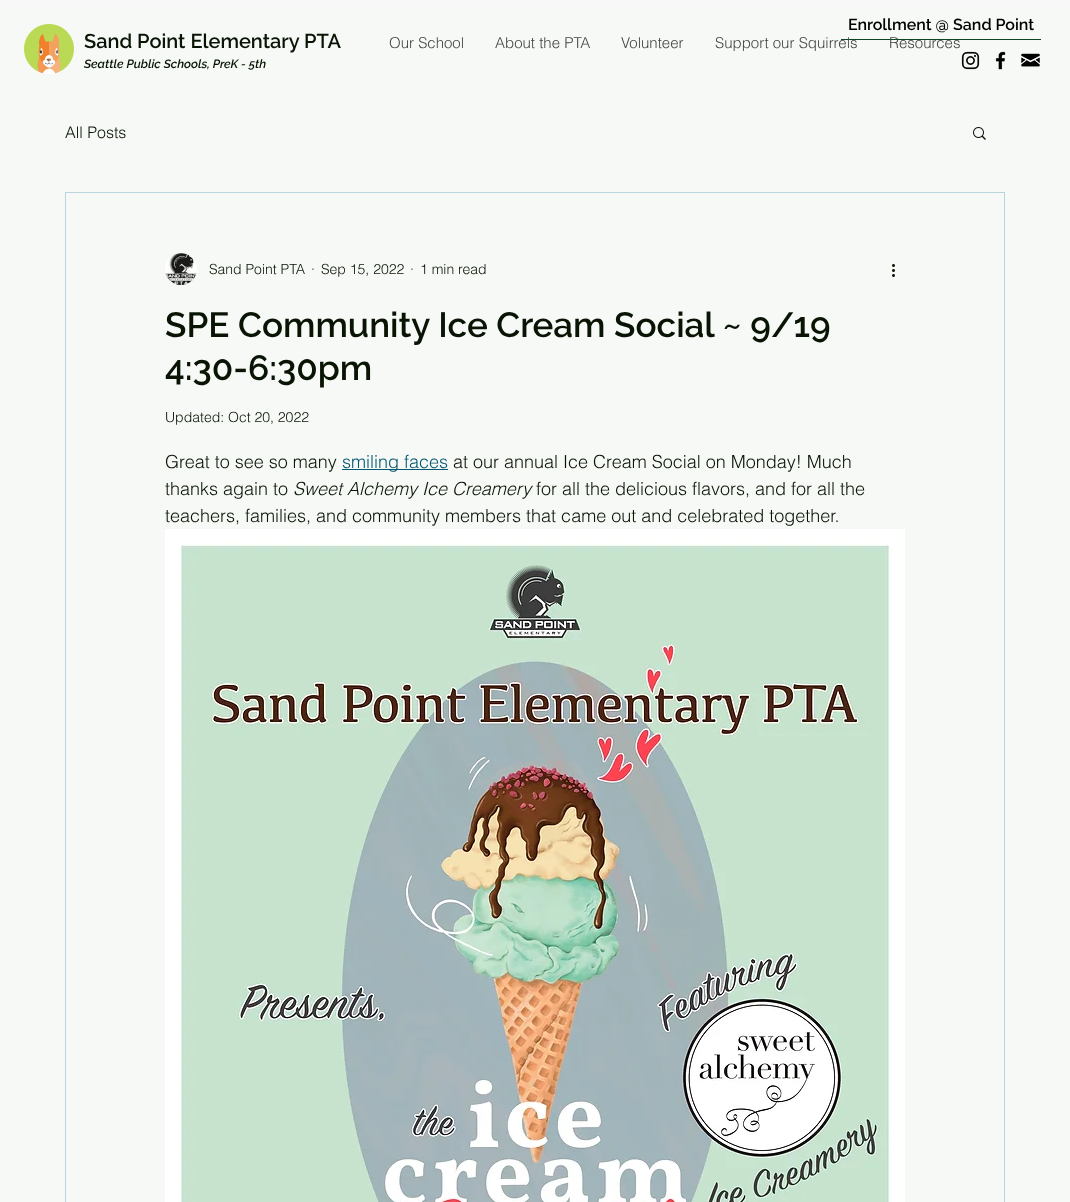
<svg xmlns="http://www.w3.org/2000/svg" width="1070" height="1202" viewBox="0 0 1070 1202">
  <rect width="100%" height="100%" fill="#f6f9f5"/>
  <rect x="841" y="39" width="200" height="1" fill="#0c4426"/>
  <text x="848" y="30" font-family="Raleway" font-size="16" font-weight="600" fill="#000000">Enrollment @ Sand Point</text>
  <image x="961" y="51" width="19" height="19" href="img1.png"/>
  <image x="995" y="51" width="11" height="19" href="img2.png"/>
  <image x="1021" y="53" width="19" height="14" href="img3.png"/>
  <rect x="0" y="1" width="1070" height="8" fill="#f9f8f8"/>
  <image x="24" y="24" width="50" height="50" href="img4.png"/>
  <text x="84" y="48" font-family="Raleway" font-size="20" font-weight="600" fill="#091405">Sand Point Elementary PTA</text>
  <text x="84" y="68" font-family="Raleway" font-size="12" font-weight="600" font-style="italic" fill="#091405">Seattle Public Schools, PreK - 5th</text>
  <text x="389" y="48" font-family="helvetica" font-size="15" font-weight="300" fill="#444444">Our School</text>
  <text x="495" y="48" font-family="helvetica" font-size="15" font-weight="300" fill="#444444">About the PTA</text>
  <text x="621" y="48" font-family="helvetica" font-size="15" font-weight="300" fill="#444444">Volunteer</text>
  <text x="715" y="48" font-family="helvetica" font-size="15" font-weight="300" fill="#444444">Support our Squirrels</text>
  <text x="889" y="48" font-family="helvetica" font-size="15" font-weight="300" fill="#444444">Resources</text>
  <text x="65" y="138" font-family="helvetica" font-size="16" font-weight="300" fill="#091405">All Posts</text>
  <image x="973" y="127" width="13" height="13" href="img5.png"/>
  <rect x="65.5" y="192.5" width="939" height="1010" fill="none" stroke="#b9d4dc"/>
  <image x="165" y="253" width="32" height="32" href="img6.png"/>
  <text x="209" y="274" font-family="helvetica" font-size="14" font-weight="300" fill="#091405">Sand Point PTA</text>
  <text x="311" y="274" font-family="helvetica" font-size="14" font-weight="300" fill="#091405">·</text>
  <text x="321" y="274" font-family="helvetica" font-size="14" font-weight="300" fill="#091405">Sep 15, 2022</text>
  <text x="410" y="274" font-family="helvetica" font-size="14" font-weight="300" fill="#091405">·</text>
  <text x="420" y="274" font-family="helvetica" font-size="14" font-weight="300" fill="#091405">1 min read</text>
  <image x="892" y="264" width="3" height="13" href="img7.png"/>
  <text x="165" y="337" font-family="Raleway" font-size="35" font-weight="600" fill="#091405">SPE Community Ice Cream Social ~ 9/19</text>
  <text x="165" y="380" font-family="Raleway" font-size="35" font-weight="600" fill="#091405">4:30-6:30pm</text>
  <text x="165" y="422" font-family="helvetica" font-size="14" font-weight="300" fill="#091405">Updated: Oct 20, 2022</text>
  <text x="165" y="468" font-family="helvetica" font-size="18" font-weight="300" fill="#091405">Great to see so many</text>
  <rect x="342" y="469" width="106" height="1" fill="#035772"/>
  <text x="342" y="468" font-family="helvetica" font-size="18" font-weight="300" fill="#035772">smiling faces</text>
  <text x="453" y="468" font-family="helvetica" font-size="18" font-weight="300" fill="#091405">at our annual Ice Cream Social on Monday! Much</text>
  <text x="165" y="495" font-family="helvetica" font-size="18" font-weight="300" fill="#091405">thanks again to</text>
  <text x="293" y="495" font-family="helvetica" font-size="18" font-weight="300" font-style="italic" fill="#091405">Sweet Alchemy Ice Creamery</text>
  <text x="536" y="495" font-family="helvetica" font-size="18" font-weight="300" fill="#091405">for all the delicious flavors, and for all the</text>
  <text x="165" y="522" font-family="helvetica" font-size="18" font-weight="300" fill="#091405">teachers, families, and community members that came out and celebrated together.</text>
  <image x="165" y="529" width="740" height="673" href="img8.png"/>
</svg>
